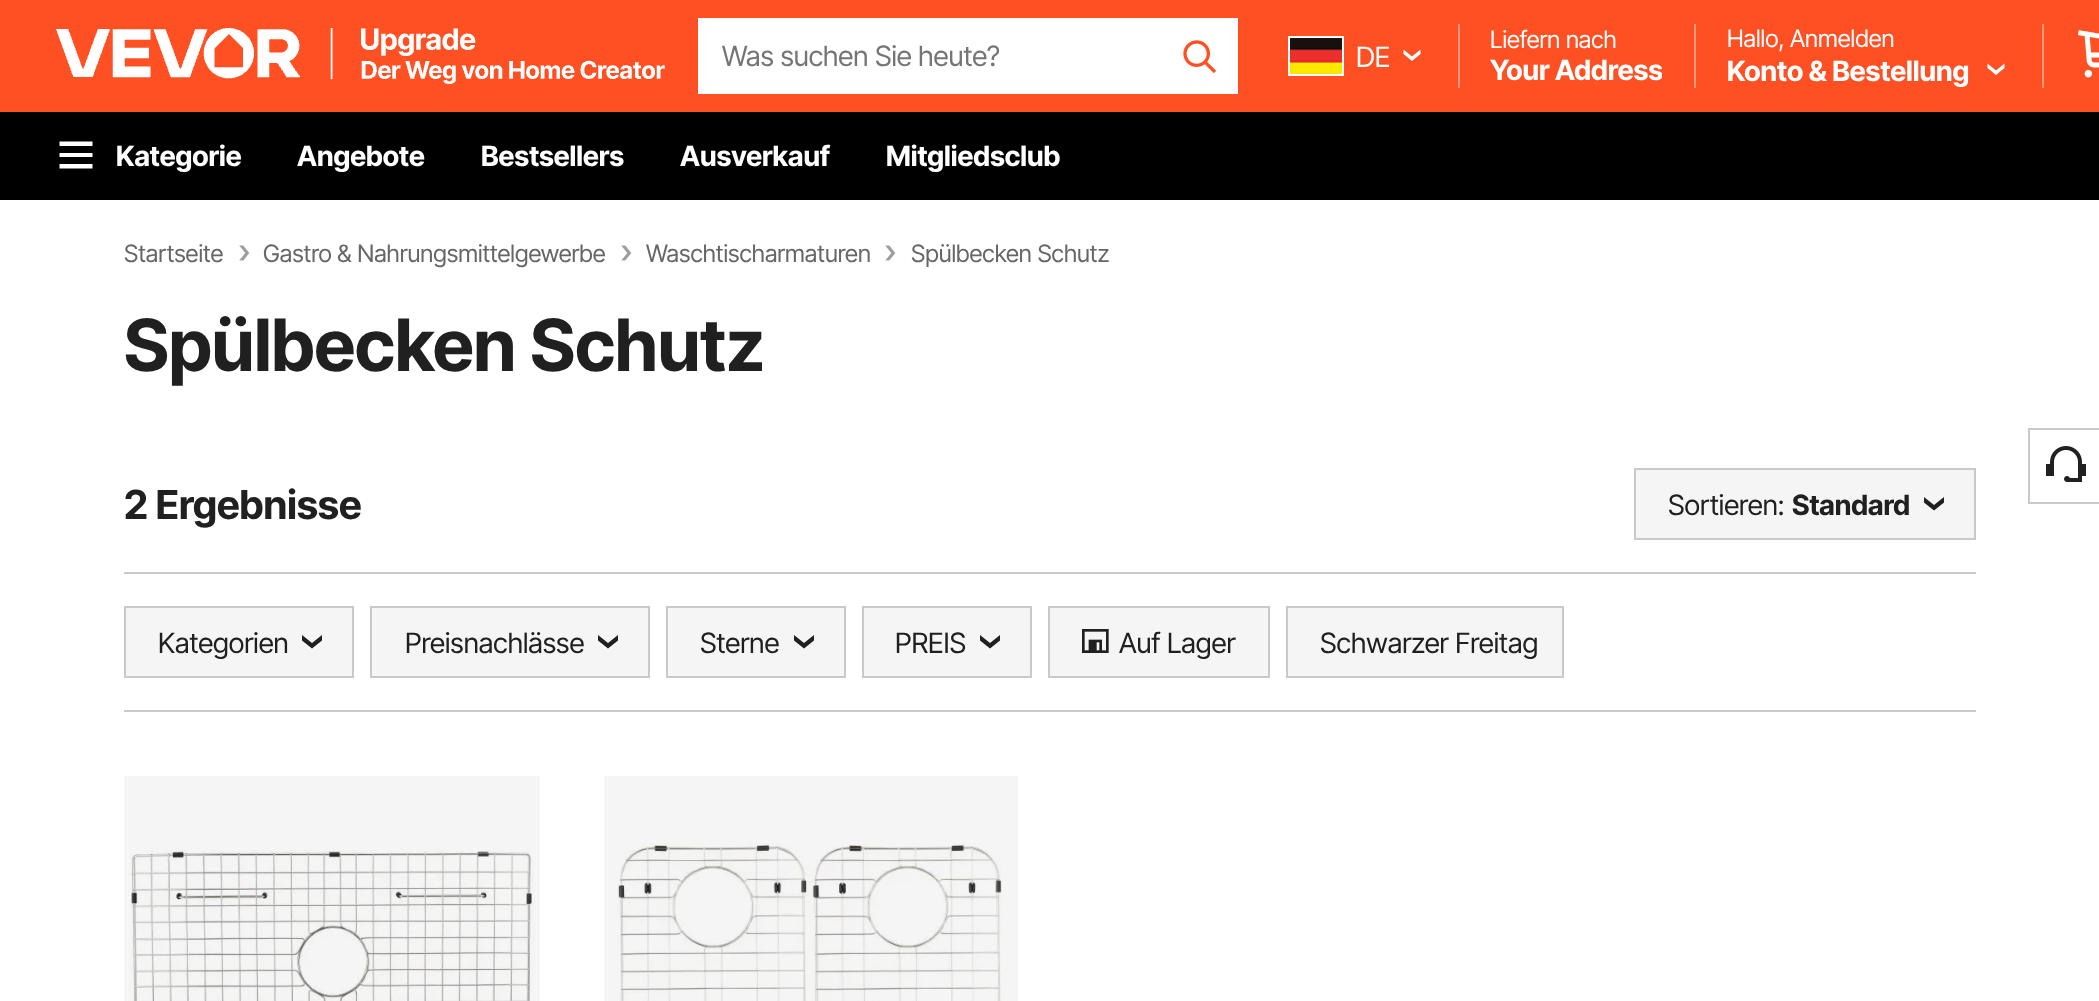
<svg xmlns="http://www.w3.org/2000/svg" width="2099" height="1001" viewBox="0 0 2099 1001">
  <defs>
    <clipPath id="clip1"><rect x="1490" y="54" width="172" height="32"/></clipPath>
  </defs>
  <rect width="100%" height="100%" fill="#ff5023"/>
  <image x="56" y="28" width="609" height="56" href="img1.png"/>
  <rect x="698" y="18" width="540" height="76" fill="#ffffff"/>
  <text x="722" y="66" font-family="Inter Tight" font-size="28" fill="#757575">Was suchen Sie heute?</text>
  <image x="1183" y="40" width="34" height="34" href="img2.png"/>
  <rect x="1289" y="37" width="54" height="38" fill="none" stroke="#ffffff" stroke-width="2"/>
  <image x="1290" y="38" width="52" height="36" href="img3.png"/>
  <text x="1356" y="67" font-family="Inter Tight" font-size="28" fill="#ffffff">DE</text>
  <path d="M1420.5 49.5V54L1412 61L1403.5 54V49.5L1412 56.5Z" fill="#ffffff"/>
  <rect x="1458" y="24" width="2" height="64" fill="#ff967b"/>
  <text x="1490" y="48" font-family="Inter Tight" font-size="24" fill="#ffffff">Liefern nach</text>
  <g clip-path="url(#clip1)">
    <text x="1490" y="80" font-family="Inter Tight" font-size="28" font-weight="bold" fill="#ffffff">Your Address</text>
  </g>
  <rect x="1694" y="24" width="2" height="64" fill="#ff967b"/>
  <text x="1727" y="47" font-family="Inter Tight" font-size="24" fill="#ffffff">Hallo, Anmelden</text>
  <text x="1727" y="81" font-family="Inter Tight" font-size="28" font-weight="bold" fill="#ffffff">Konto &amp; Bestellung</text>
  <path d="M2004.5 63.5V68L1996 75L1987.5 68V63.5L1996 70.5Z" fill="#ffffff"/>
  <rect x="2042" y="24" width="2" height="64" fill="#ff967b"/>
  <image x="2078" y="30" width="21" height="48" href="img4.png"/>
  <rect x="0" y="112" width="2099" height="88" fill="#000000"/>
  <path d="M59.5 141.5H92.5V146H59.5ZM59.5 164H92.5V168.5H59.5ZM92.5 153V157H59.5V153Z" fill="#ffffff"/>
  <text x="116" y="166" font-family="Inter Tight" font-size="28" font-weight="bold" fill="#ffffff">Kategorie</text>
  <text x="297" y="166" font-family="Inter Tight" font-size="28" font-weight="bold" fill="#ffffff">Angebote</text>
  <text x="481" y="166" font-family="Inter Tight" font-size="28" font-weight="bold" fill="#ffffff">Bestsellers</text>
  <text x="680" y="166" font-family="Inter Tight" font-size="28" font-weight="bold" fill="#ffffff">Ausverkauf</text>
  <text x="886" y="166" font-family="Inter Tight" font-size="28" font-weight="bold" fill="#ffffff">Mitgliedsclub</text>
  <rect x="0" y="200" width="2099" height="801" fill="#ffffff"/>
  <rect x="604" y="776" width="414" height="225" fill="#f5f5f5"/>
  <rect x="124" y="776" width="416" height="225" fill="#f5f5f5"/>
  <text x="124" y="262" font-family="Inter Tight" font-size="24" fill="#666666">Startseite</text>
  <image x="239" y="245" width="11" height="16" href="img5.png"/>
  <text x="263" y="262" font-family="Inter Tight" font-size="24" fill="#666666">Gastro &amp; Nahrungsmittelgewerbe</text>
  <image x="621" y="245" width="11" height="16" href="img5.png"/>
  <text x="646" y="262" font-family="Inter Tight" font-size="24" fill="#666666">Waschtischarmaturen</text>
  <image x="885" y="245" width="11" height="16" href="img5.png"/>
  <text x="911" y="262" font-family="Inter Tight" font-size="24" fill="#666666">Spülbecken Schutz</text>
  <text x="124" y="371" font-family="Inter Tight" font-size="72" font-weight="bold" fill="#202020">Spülbecken Schutz</text>
  <text x="124" y="519" font-family="Inter Tight" font-size="40" font-weight="bold" fill="#202020">2 Ergebnisse</text>
  <rect x="1635" y="469" width="340" height="70" fill="#f5f5f5" stroke="#c8c9cc" stroke-width="2"/>
  <text x="1668" y="515" font-family="Inter Tight" font-size="28" fill="#202020">Sortieren:</text>
  <text x="1792" y="515" font-family="Inter Tight" font-size="28" font-weight="bold" fill="#202020">Standard</text>
  <path d="M1944 497V502.5L1934 510.5L1924 502.5V497L1934 505Z" fill="#202020"/>
  <rect x="124" y="572" width="1852" height="2" fill="#c8c9cc"/>
  <rect x="124" y="710" width="1852" height="2" fill="#c8c9cc"/>
  <rect x="125" y="607" width="228" height="70" fill="#f5f5f5" stroke="#c8c9cc" stroke-width="2"/>
  <text x="158" y="653" font-family="Inter Tight" font-size="28" fill="#202020">Kategorien</text>
  <path d="M322 635V640.5L312 648.5L302 640.5V635L312 643Z" fill="#202020"/>
  <rect x="371" y="607" width="278" height="70" fill="#f5f5f5" stroke="#c8c9cc" stroke-width="2"/>
  <text x="405" y="653" font-family="Inter Tight" font-size="28" fill="#202020">Preisnachlässe</text>
  <path d="M618 635V640.5L608 648.5L598 640.5V635L608 643Z" fill="#202020"/>
  <rect x="667" y="607" width="178" height="70" fill="#f5f5f5" stroke="#c8c9cc" stroke-width="2"/>
  <text x="700" y="653" font-family="Inter Tight" font-size="28" fill="#202020">Sterne</text>
  <path d="M814 635V640.5L804 648.5L794 640.5V635L804 643Z" fill="#202020"/>
  <rect x="863" y="607" width="168" height="70" fill="#f5f5f5" stroke="#c8c9cc" stroke-width="2"/>
  <text x="895" y="653" font-family="Inter Tight" font-size="28" fill="#202020">PREIS</text>
  <path d="M1000 635V640.5L990 648.5L980 640.5V635L990 643Z" fill="#202020"/>
  <rect x="1049" y="607" width="220" height="70" fill="#f5f5f5" stroke="#c8c9cc" stroke-width="2"/>
  <image x="1082" y="629" width="27" height="24" href="img6.png"/>
  <text x="1119" y="653" font-family="Inter Tight" font-size="28" fill="#202020">Auf Lager</text>
  <rect x="1287" y="607" width="276" height="70" fill="#f5f5f5" stroke="#c8c9cc" stroke-width="2"/>
  <text x="1320" y="653" font-family="Inter Tight" font-size="28" fill="#202020">Schwarzer Freitag</text>
  <image x="130" y="850" width="404" height="151" href="img7.png"/>
  <image x="617" y="843" width="385" height="158" href="img8.png"/>
  <rect x="2029" y="429" width="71" height="74" fill="none" stroke="#c8c9cc" stroke-width="2"/>
  <image x="2046" y="446" width="40" height="36" href="img9.png"/>
</svg>
